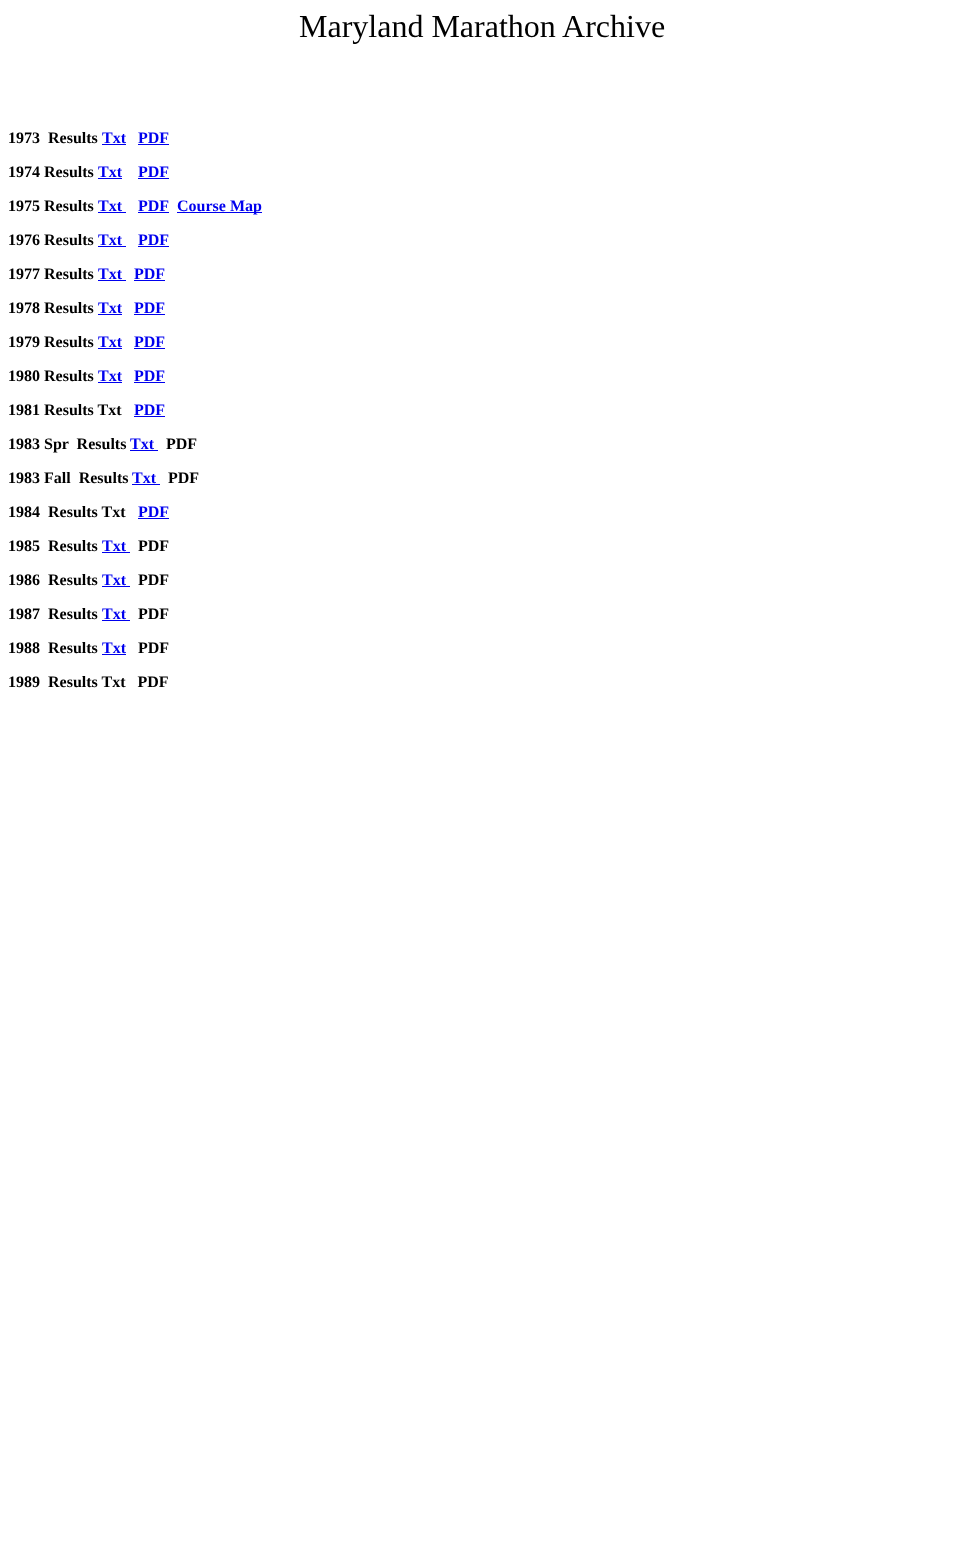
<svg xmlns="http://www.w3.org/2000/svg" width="965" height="1547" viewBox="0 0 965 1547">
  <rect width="100%" height="100%" fill="#ffffff"/>
  <text x="299" y="37" font-family="Liberation Serif" font-size="32" fill="#000000">Maryland Marathon Archive</text>
  <text x="8" y="143" font-family="Liberation Serif" font-size="16" font-weight="bold" fill="#000000" xml:space="preserve">1973  Results</text>
  <text x="102" y="143" font-family="Liberation Serif" font-size="16" font-weight="bold" fill="#0000ee">Txt</text>
  <rect x="102" y="144" width="24" height="1" fill="#0000ee"/>
  <text x="138" y="143" font-family="Liberation Serif" font-size="16" font-weight="bold" fill="#0000ee">PDF</text>
  <rect x="138" y="144" width="31" height="1" fill="#0000ee"/>
  <text x="8" y="177" font-family="Liberation Serif" font-size="16" font-weight="bold" fill="#000000">1974 Results</text>
  <text x="98" y="177" font-family="Liberation Serif" font-size="16" font-weight="bold" fill="#0000ee">Txt</text>
  <rect x="98" y="178" width="24" height="1" fill="#0000ee"/>
  <text x="138" y="177" font-family="Liberation Serif" font-size="16" font-weight="bold" fill="#0000ee">PDF</text>
  <rect x="138" y="178" width="31" height="1" fill="#0000ee"/>
  <text x="8" y="211" font-family="Liberation Serif" font-size="16" font-weight="bold" fill="#000000">1975 Results</text>
  <text x="98" y="211" font-family="Liberation Serif" font-size="16" font-weight="bold" fill="#0000ee">Txt</text>
  <rect x="98" y="212" width="28" height="1" fill="#0000ee"/>
  <text x="138" y="211" font-family="Liberation Serif" font-size="16" font-weight="bold" fill="#0000ee">PDF</text>
  <rect x="138" y="212" width="31" height="1" fill="#0000ee"/>
  <rect x="177" y="212" width="85" height="1" fill="#0000ee"/>
  <text x="177" y="211" font-family="Liberation Serif" font-size="16" font-weight="bold" fill="#0000ee">Course Map</text>
  <text x="8" y="245" font-family="Liberation Serif" font-size="16" font-weight="bold" fill="#000000">1976 Results</text>
  <text x="98" y="245" font-family="Liberation Serif" font-size="16" font-weight="bold" fill="#0000ee">Txt</text>
  <rect x="98" y="246" width="28" height="1" fill="#0000ee"/>
  <text x="138" y="245" font-family="Liberation Serif" font-size="16" font-weight="bold" fill="#0000ee">PDF</text>
  <rect x="138" y="246" width="31" height="1" fill="#0000ee"/>
  <text x="8" y="279" font-family="Liberation Serif" font-size="16" font-weight="bold" fill="#000000">1977 Results</text>
  <text x="98" y="279" font-family="Liberation Serif" font-size="16" font-weight="bold" fill="#0000ee">Txt</text>
  <rect x="98" y="280" width="28" height="1" fill="#0000ee"/>
  <text x="134" y="279" font-family="Liberation Serif" font-size="16" font-weight="bold" fill="#0000ee">PDF</text>
  <rect x="134" y="280" width="31" height="1" fill="#0000ee"/>
  <text x="8" y="313" font-family="Liberation Serif" font-size="16" font-weight="bold" fill="#000000">1978 Results</text>
  <text x="98" y="313" font-family="Liberation Serif" font-size="16" font-weight="bold" fill="#0000ee">Txt</text>
  <rect x="98" y="314" width="24" height="1" fill="#0000ee"/>
  <text x="134" y="313" font-family="Liberation Serif" font-size="16" font-weight="bold" fill="#0000ee">PDF</text>
  <rect x="134" y="314" width="31" height="1" fill="#0000ee"/>
  <text x="8" y="347" font-family="Liberation Serif" font-size="16" font-weight="bold" fill="#000000">1979 Results</text>
  <text x="98" y="347" font-family="Liberation Serif" font-size="16" font-weight="bold" fill="#0000ee">Txt</text>
  <rect x="98" y="348" width="24" height="1" fill="#0000ee"/>
  <text x="134" y="347" font-family="Liberation Serif" font-size="16" font-weight="bold" fill="#0000ee">PDF</text>
  <rect x="134" y="348" width="31" height="1" fill="#0000ee"/>
  <text x="8" y="381" font-family="Liberation Serif" font-size="16" font-weight="bold" fill="#000000">1980 Results</text>
  <text x="98" y="381" font-family="Liberation Serif" font-size="16" font-weight="bold" fill="#0000ee">Txt</text>
  <rect x="98" y="382" width="24" height="1" fill="#0000ee"/>
  <text x="134" y="381" font-family="Liberation Serif" font-size="16" font-weight="bold" fill="#0000ee">PDF</text>
  <rect x="134" y="382" width="31" height="1" fill="#0000ee"/>
  <text x="8" y="415" font-family="Liberation Serif" font-size="16" font-weight="bold" fill="#000000">1981 Results Txt</text>
  <text x="134" y="415" font-family="Liberation Serif" font-size="16" font-weight="bold" fill="#0000ee">PDF</text>
  <rect x="134" y="416" width="31" height="1" fill="#0000ee"/>
  <text x="8" y="449" font-family="Liberation Serif" font-size="16" font-weight="bold" fill="#000000" xml:space="preserve">1983 Spr  Results</text>
  <text x="130" y="449" font-family="Liberation Serif" font-size="16" font-weight="bold" fill="#0000ee">Txt</text>
  <rect x="130" y="450" width="28" height="1" fill="#0000ee"/>
  <text x="166" y="449" font-family="Liberation Serif" font-size="16" font-weight="bold" fill="#000000">PDF</text>
  <text x="8" y="483" font-family="Liberation Serif" font-size="16" font-weight="bold" fill="#000000" xml:space="preserve">1983 Fall  Results</text>
  <text x="132" y="483" font-family="Liberation Serif" font-size="16" font-weight="bold" fill="#0000ee">Txt</text>
  <rect x="132" y="484" width="28" height="1" fill="#0000ee"/>
  <text x="168" y="483" font-family="Liberation Serif" font-size="16" font-weight="bold" fill="#000000">PDF</text>
  <text x="8" y="517" font-family="Liberation Serif" font-size="16" font-weight="bold" fill="#000000" xml:space="preserve">1984  Results Txt</text>
  <text x="138" y="517" font-family="Liberation Serif" font-size="16" font-weight="bold" fill="#0000ee">PDF</text>
  <rect x="138" y="518" width="31" height="1" fill="#0000ee"/>
  <text x="8" y="551" font-family="Liberation Serif" font-size="16" font-weight="bold" fill="#000000" xml:space="preserve">1985  Results</text>
  <text x="102" y="551" font-family="Liberation Serif" font-size="16" font-weight="bold" fill="#0000ee">Txt</text>
  <rect x="102" y="552" width="28" height="1" fill="#0000ee"/>
  <text x="138" y="551" font-family="Liberation Serif" font-size="16" font-weight="bold" fill="#000000">PDF</text>
  <text x="8" y="585" font-family="Liberation Serif" font-size="16" font-weight="bold" fill="#000000" xml:space="preserve">1986  Results</text>
  <text x="102" y="585" font-family="Liberation Serif" font-size="16" font-weight="bold" fill="#0000ee">Txt</text>
  <rect x="102" y="586" width="28" height="1" fill="#0000ee"/>
  <text x="138" y="585" font-family="Liberation Serif" font-size="16" font-weight="bold" fill="#000000">PDF</text>
  <text x="8" y="619" font-family="Liberation Serif" font-size="16" font-weight="bold" fill="#000000" xml:space="preserve">1987  Results</text>
  <text x="102" y="619" font-family="Liberation Serif" font-size="16" font-weight="bold" fill="#0000ee">Txt</text>
  <rect x="102" y="620" width="28" height="1" fill="#0000ee"/>
  <text x="138" y="619" font-family="Liberation Serif" font-size="16" font-weight="bold" fill="#000000">PDF</text>
  <text x="8" y="653" font-family="Liberation Serif" font-size="16" font-weight="bold" fill="#000000" xml:space="preserve">1988  Results</text>
  <text x="102" y="653" font-family="Liberation Serif" font-size="16" font-weight="bold" fill="#0000ee">Txt</text>
  <rect x="102" y="654" width="24" height="1" fill="#0000ee"/>
  <text x="138" y="653" font-family="Liberation Serif" font-size="16" font-weight="bold" fill="#000000">PDF</text>
  <text x="8" y="687" font-family="Liberation Serif" font-size="16" font-weight="bold" fill="#000000" xml:space="preserve">1989  Results Txt   PDF</text>
</svg>
